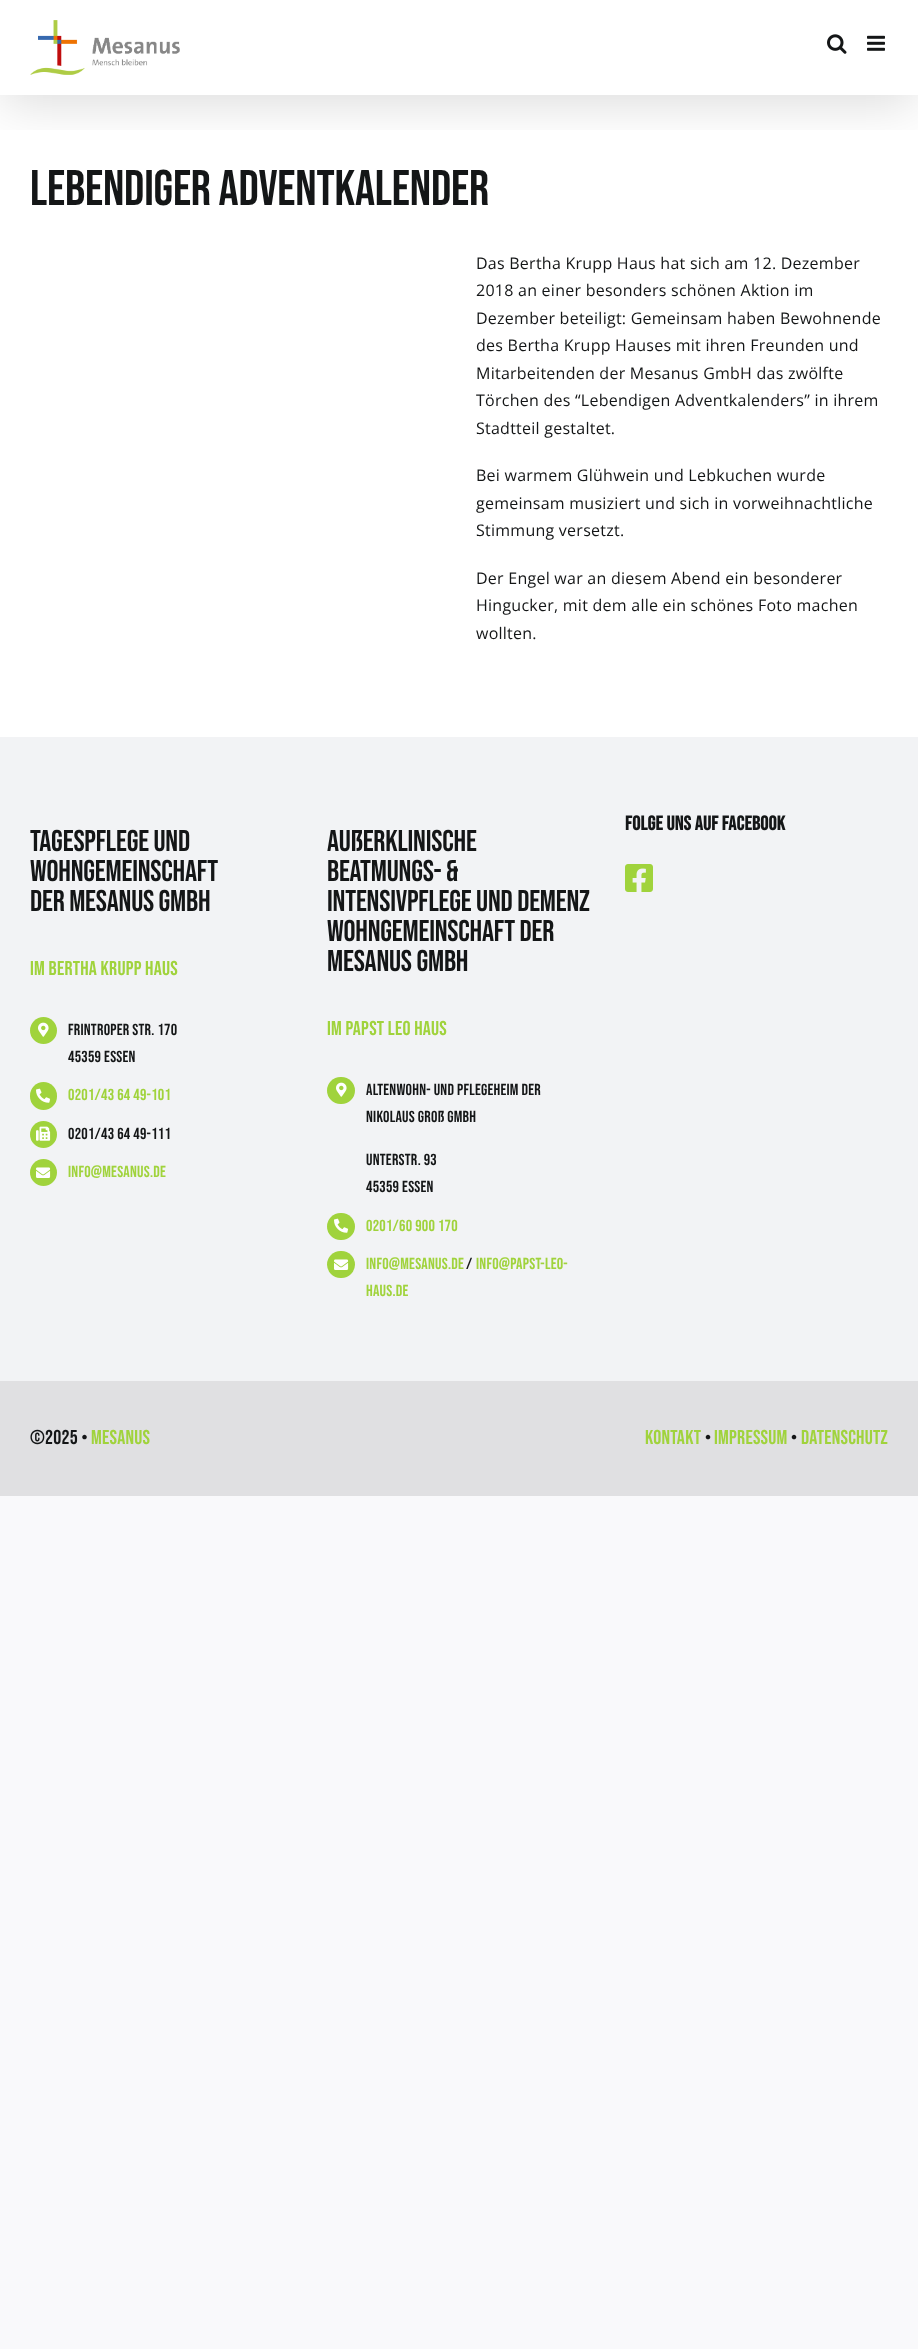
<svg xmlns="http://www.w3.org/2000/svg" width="918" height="2349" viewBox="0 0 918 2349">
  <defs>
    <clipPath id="clip1"><rect x="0" y="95" width="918" height="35"/></clipPath>
    <filter id="blur1" x="-50%" y="-200%" width="200%" height="500%"><feGaussianBlur stdDeviation="25"/></filter>
  </defs>
  <rect width="100%" height="100%" fill="#f9f9fb"/>
  <rect x="0" y="0" width="918" height="737" fill="#ffffff"/>
  <g clip-path="url(#clip1)">
    <rect x="2" y="12" width="914" height="91" fill="#000000" fill-opacity="0.14" filter="url(#blur1)"/>
  </g>
  <image x="30" y="20" width="150" height="55" href="img1.png"/>
  <image x="827" y="34" width="20" height="20" href="img2.png"/>
  <image x="867" y="35" width="18" height="16" href="img3.png"/>
  <text x="30" y="205" font-family="Bebas Neue" font-size="50" letter-spacing="-0.2" fill="#141617">Lebendiger Adventkalender</text>
  <text x="476" y="269" font-family="Open Sans" font-size="16" letter-spacing="0.25" fill="#141617">Das Bertha Krupp Haus hat sich am 12. Dezember</text>
  <text x="476" y="296" font-family="Open Sans" font-size="16" letter-spacing="0.25" fill="#141617">2018 an einer besonders schönen Aktion im</text>
  <text x="476" y="324" font-family="Open Sans" font-size="16" letter-spacing="0.25" fill="#141617">Dezember beteiligt: Gemeinsam haben Bewohnende</text>
  <text x="476" y="351" font-family="Open Sans" font-size="16" letter-spacing="0.25" fill="#141617">des Bertha Krupp Hauses mit ihren Freunden und</text>
  <text x="476" y="379" font-family="Open Sans" font-size="16" letter-spacing="0.25" fill="#141617">Mitarbeitenden der Mesanus GmbH das zwölfte</text>
  <text x="476" y="406" font-family="Open Sans" font-size="16" letter-spacing="0.25" fill="#141617">Törchen des “Lebendigen Adventkalenders” in ihrem</text>
  <text x="476" y="434" font-family="Open Sans" font-size="16" letter-spacing="0.25" fill="#141617">Stadtteil gestaltet.</text>
  <text x="476" y="481" font-family="Open Sans" font-size="16" letter-spacing="0.25" fill="#141617">Bei warmem Glühwein und Lebkuchen wurde</text>
  <text x="476" y="509" font-family="Open Sans" font-size="16" letter-spacing="0.25" fill="#141617">gemeinsam musiziert und sich in vorweihnachtliche</text>
  <text x="476" y="536" font-family="Open Sans" font-size="16" letter-spacing="0.25" fill="#141617">Stimmung versetzt.</text>
  <text x="476" y="584" font-family="Open Sans" font-size="16" letter-spacing="0.25" fill="#141617">Der Engel war an diesem Abend ein besonderer</text>
  <text x="476" y="611" font-family="Open Sans" font-size="16" letter-spacing="0.25" fill="#141617">Hingucker, mit dem alle ein schönes Foto machen</text>
  <text x="476" y="639" font-family="Open Sans" font-size="16" letter-spacing="0.25" fill="#141617">wollten.</text>
  <rect x="0" y="737" width="918" height="644" fill="#f2f3f5"/>
  <text x="625" y="830" font-family="Bebas Neue" font-size="20" font-weight="bold" letter-spacing="0.25" fill="#141617">Folge uns auf Facebook</text>
  <image x="625" y="864" width="28" height="28" href="img4.png"/>
  <text x="30" y="851" font-family="Bebas Neue" font-size="30" letter-spacing="-0.2" fill="#141617">Tagespflege und</text>
  <text x="30" y="881" font-family="Bebas Neue" font-size="30" letter-spacing="-0.2" fill="#141617">Wohngemeinschaft</text>
  <text x="30" y="911" font-family="Bebas Neue" font-size="30" letter-spacing="-0.2" fill="#141617">der Mesanus GmbH</text>
  <text x="30" y="975" font-family="Bebas Neue" font-size="20" letter-spacing="0.25" fill="#a0d33c">im Bertha Krupp Haus</text>
  <circle cx="43.5" cy="1030.5" r="13.5" fill="#a0d33c"/>
  <image x="38" y="1022" width="11" height="15" href="img5.png"/>
  <text x="68" y="1035" font-family="Bebas Neue" font-size="16" letter-spacing="0.25" fill="#141617">Frintroper Str. 170</text>
  <text x="68" y="1062" font-family="Bebas Neue" font-size="16" letter-spacing="0.25" fill="#141617">45359 Essen</text>
  <rect x="30" y="1082" width="27" height="28" rx="13.5" fill="#a0d33c"/>
  <image x="36" y="1088" width="15" height="15" href="img6.png"/>
  <text x="68" y="1100" font-family="Bebas Neue" font-size="16" letter-spacing="0.25" fill="#a0d33c">0201/43 64 49-101</text>
  <circle cx="43.5" cy="1134.5" r="13.5" fill="#a0d33c"/>
  <image x="36" y="1126" width="15" height="15" href="img7.png"/>
  <text x="68" y="1139" font-family="Bebas Neue" font-size="16" letter-spacing="0.25" fill="#141617">0201/43 64 49-111</text>
  <circle cx="43.5" cy="1172.5" r="13.5" fill="#a0d33c"/>
  <image x="36" y="1167" width="15" height="11" href="img8.png"/>
  <text x="68" y="1177" font-family="Bebas Neue" font-size="16" letter-spacing="0.25" fill="#a0d33c">info@mesanus.de</text>
  <text x="327" y="851" font-family="Bebas Neue" font-size="30" letter-spacing="-0.2" fill="#141617">Außerklinische</text>
  <text x="327" y="881" font-family="Bebas Neue" font-size="30" letter-spacing="-0.2" fill="#141617">Beatmungs- &amp;</text>
  <text x="327" y="911" font-family="Bebas Neue" font-size="30" letter-spacing="-0.2" fill="#141617">Intensivpflege und Demenz</text>
  <text x="327" y="941" font-family="Bebas Neue" font-size="30" letter-spacing="-0.2" fill="#141617">Wohngemeinschaft der</text>
  <text x="327" y="971" font-family="Bebas Neue" font-size="30" letter-spacing="-0.2" fill="#141617">Mesanus GmbH</text>
  <text x="327" y="1035" font-family="Bebas Neue" font-size="20" letter-spacing="0.25" fill="#a0d33c">im Papst Leo Haus</text>
  <rect x="327" y="1077" width="28" height="27" rx="13.5" fill="#a0d33c"/>
  <image x="336" y="1082" width="11" height="15" href="img5.png"/>
  <text x="366" y="1095" font-family="Bebas Neue" font-size="16" letter-spacing="0.25" fill="#141617">Altenwohn- und Pflegeheim der</text>
  <text x="366" y="1122" font-family="Bebas Neue" font-size="16" letter-spacing="0.25" fill="#141617">Nikolaus Groß GmbH</text>
  <text x="366" y="1165" font-family="Bebas Neue" font-size="16" letter-spacing="0.25" fill="#141617">Unterstr. 93</text>
  <text x="366" y="1192" font-family="Bebas Neue" font-size="16" letter-spacing="0.25" fill="#141617">45359 Essen</text>
  <rect x="327" y="1213" width="28" height="27" rx="13.5" fill="#a0d33c"/>
  <image x="334" y="1218" width="15" height="15" href="img6.png"/>
  <text x="366" y="1231" font-family="Bebas Neue" font-size="16" letter-spacing="0.25" fill="#a0d33c">0201/60 900 170</text>
  <rect x="327" y="1251" width="28" height="27" rx="13.5" fill="#a0d33c"/>
  <image x="334" y="1259" width="15" height="11" href="img8.png"/>
  <text x="366" y="1269" font-family="Bebas Neue" font-size="16" letter-spacing="0.25" fill="#a0d33c">info@mesanus.de</text>
  <text x="466" y="1269" font-family="Bebas Neue" font-size="16" letter-spacing="0.25" fill="#141617">/</text>
  <text x="476" y="1269" font-family="Bebas Neue" font-size="16" letter-spacing="0.25" fill="#a0d33c">info@papst-leo-</text>
  <text x="366" y="1296" font-family="Bebas Neue" font-size="16" letter-spacing="0.25" fill="#a0d33c">haus.de</text>
  <rect x="0" y="1381" width="918" height="115" fill="#e0e0e2"/>
  <text x="30" y="1444" font-family="Bebas Neue" font-size="20" letter-spacing="0.25" fill="#141617">©2025 •</text>
  <text x="91" y="1444" font-family="Bebas Neue" font-size="20" letter-spacing="0.25" fill="#a0d33c">Mesanus</text>
  <text x="645" y="1444" font-family="Bebas Neue" font-size="20" letter-spacing="0.25" fill="#a0d33c">Kontakt</text>
  <text x="705" y="1444" font-family="Bebas Neue" font-size="20" letter-spacing="0.25" fill="#141617">•</text>
  <text x="714" y="1444" font-family="Bebas Neue" font-size="20" letter-spacing="0.25" fill="#a0d33c">Impressum</text>
  <text x="791" y="1444" font-family="Bebas Neue" font-size="20" letter-spacing="0.25" fill="#141617">•</text>
  <text x="801" y="1444" font-family="Bebas Neue" font-size="20" letter-spacing="0.25" fill="#a0d33c">Datenschutz</text>
</svg>
